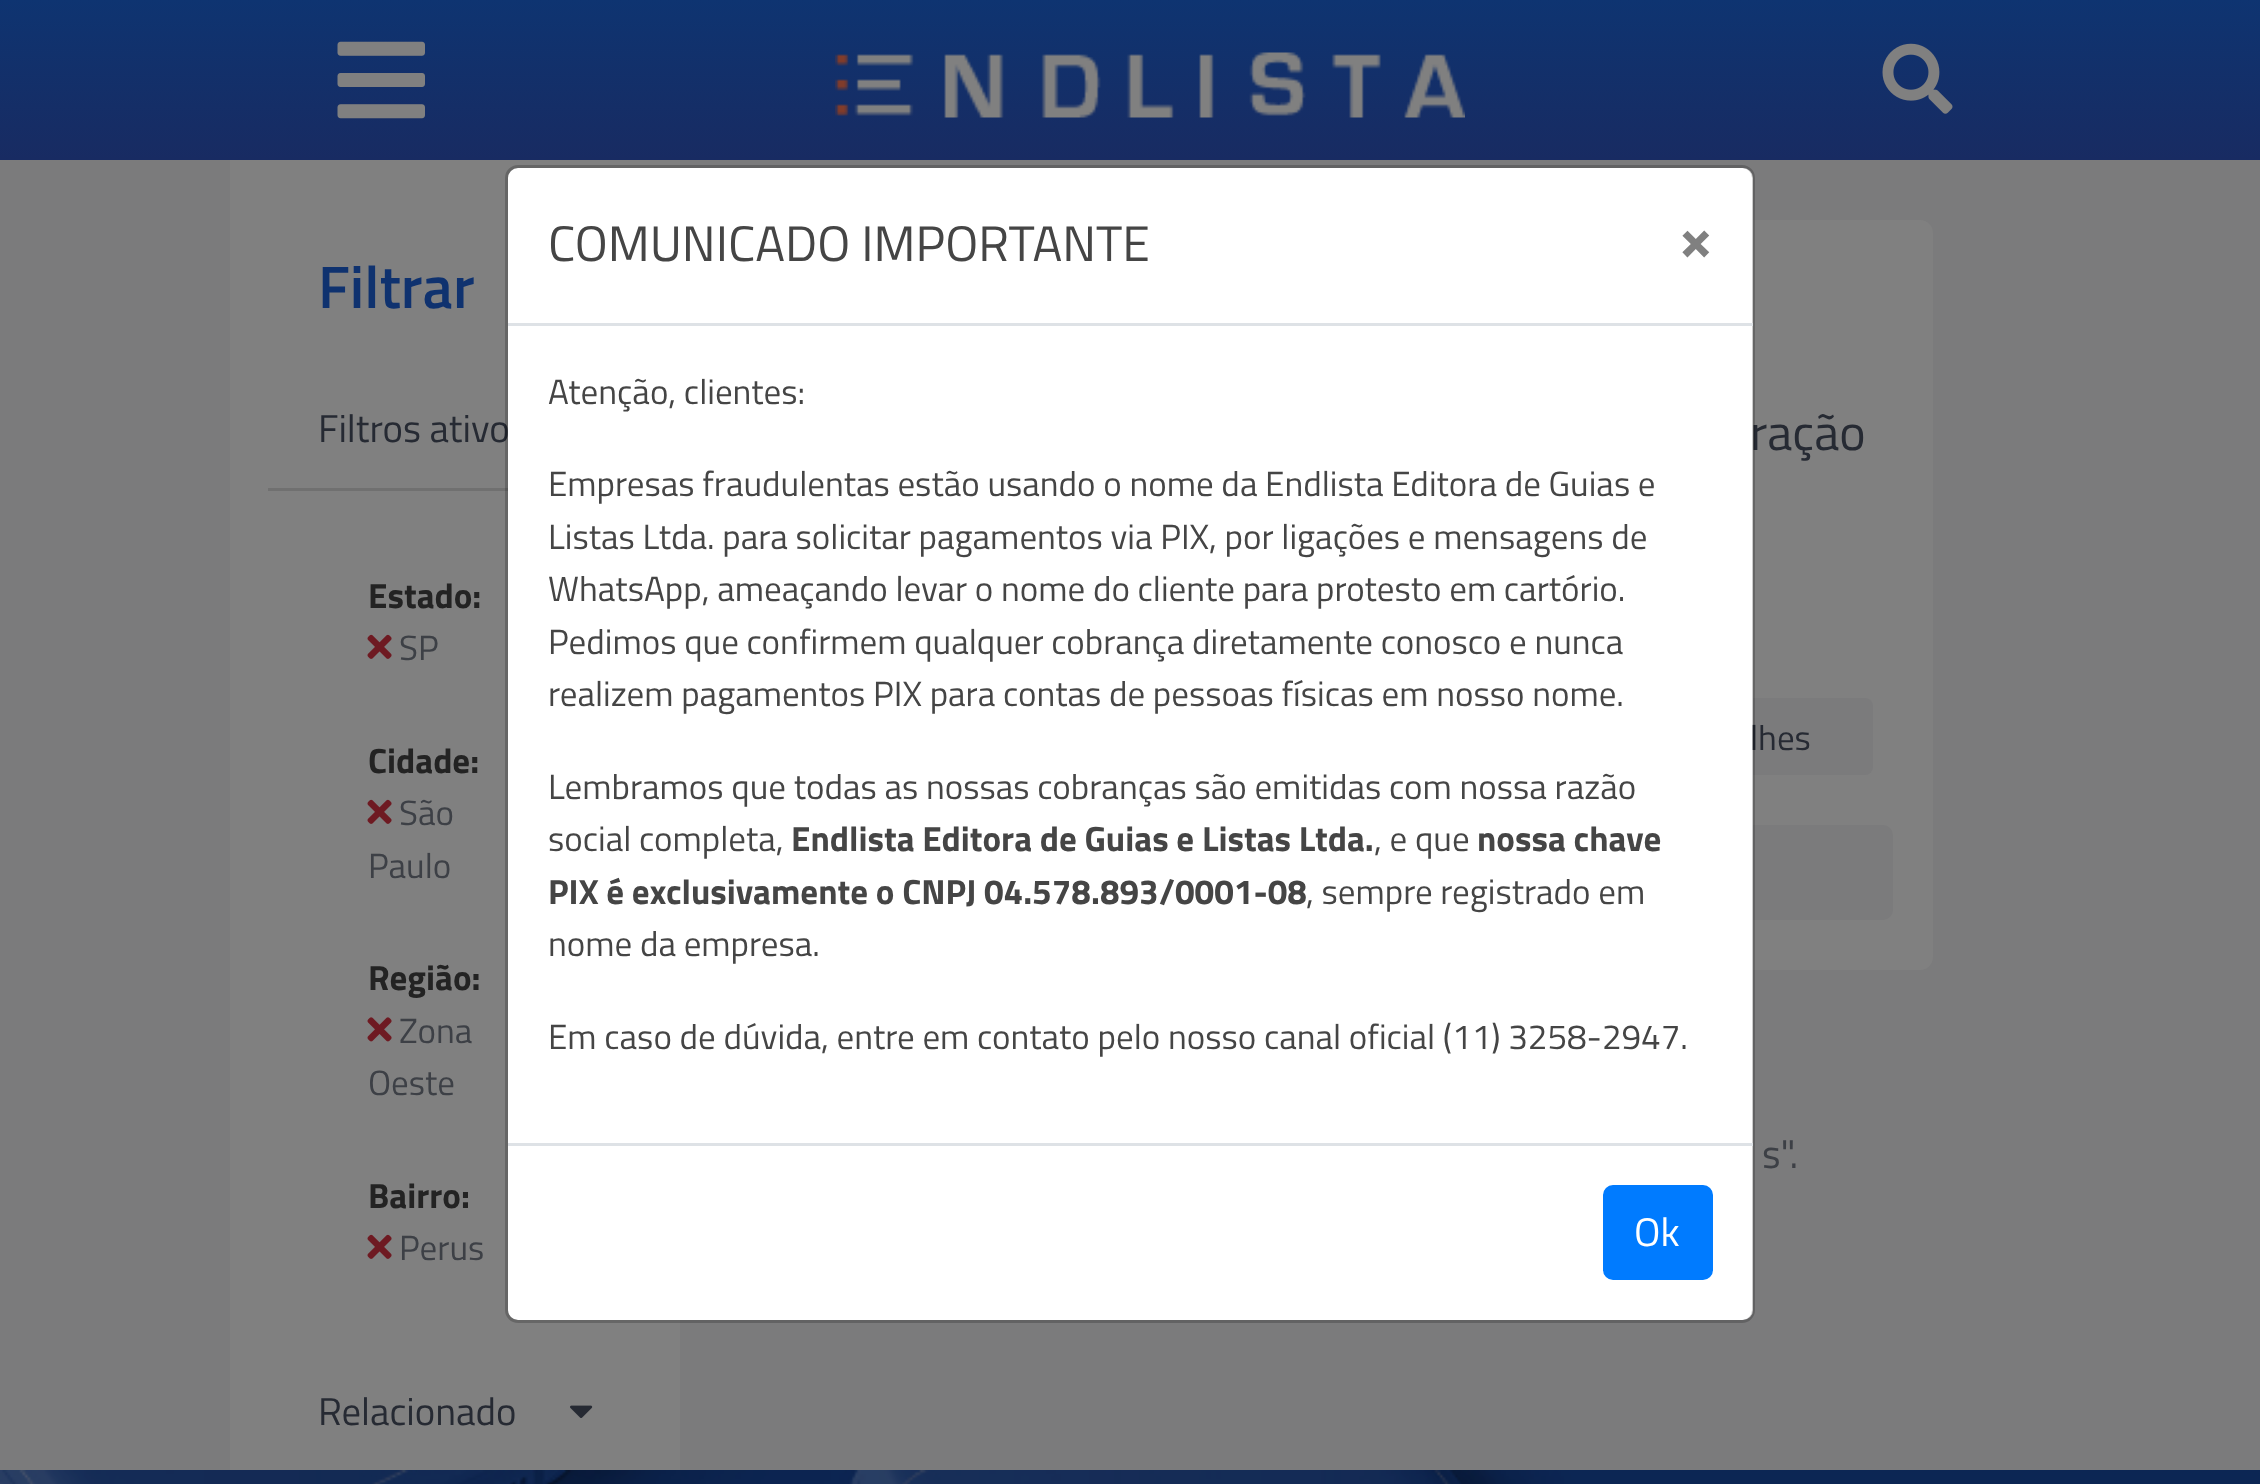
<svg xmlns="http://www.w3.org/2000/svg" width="2260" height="1484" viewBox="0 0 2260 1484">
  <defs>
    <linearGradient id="g1" gradientUnits="userSpaceOnUse" x1="1130" y1="0" x2="1130" y2="160"><stop offset="0" stop-color="#0e3471"/><stop offset="1" stop-color="#182b62"/></linearGradient>
  </defs>
  <rect width="100%" height="100%" fill="#ffffff"/>
  <rect x="0" y="0" width="2260" height="160" fill="url(#g1)"/>
  <image x="337" y="41" width="88" height="78" href="img1.png"/>
  <image x="835" y="52" width="630" height="66" href="img2.png"/>
  <image x="1882" y="43" width="71" height="71" href="img3.png"/>
  <rect x="0" y="160" width="2260" height="1310" fill="#7b7b7c"/>
  <rect x="230" y="160" width="450" height="1310" fill="#808080"/>
  <rect x="778" y="220" width="1155" height="750" rx="13" fill="#808080"/>
  <rect x="1548" y="698" width="325" height="77" rx="8" fill="#7b7b7c"/>
  <rect x="818" y="825" width="1075" height="95" rx="10" fill="#7b7b7c"/>
  <rect x="508" y="168" width="1245" height="1152" rx="10" fill="#ffffff"/>
  <rect x="268" y="488" width="240" height="3" fill="#707070"/>
  <text x="318" y="442" font-family="Titillium Web" font-size="38.75" fill="#262a33">Filtros ativo</text>
  <text x="1750" y="450" font-family="Titillium Web" font-size="50" fill="#262a33">ração</text>
  <text x="1750" y="750" font-family="Titillium Web" font-size="35" fill="#262a33">lhes</text>
  <rect x="506.5" y="166.5" width="1247" height="1155" rx="11.5" fill="none" stroke="#000000" stroke-opacity="0.2" stroke-width="3"/>
  <rect x="508" y="323" width="1245" height="3" fill="#dee2e6"/>
  <text x="548" y="261" font-family="Titillium Web" font-size="50" fill="#454545">COMUNICADO IMPORTANTE</text>
  <text x="1679" y="259" font-family="Titillium Web" font-size="60" font-weight="bold" fill="#808080">×</text>
  <text x="548" y="404" font-family="Titillium Web" font-size="35" fill="#454545">Atenção, clientes:</text>
  <text x="548" y="496" font-family="Titillium Web" font-size="35" fill="#454545">Empresas fraudulentas estão usando o nome da Endlista Editora de Guias e</text>
  <text x="548" y="549" font-family="Titillium Web" font-size="35" fill="#454545">Listas Ltda. para solicitar pagamentos via PIX, por ligações e mensagens de</text>
  <text x="548" y="601" font-family="Titillium Web" font-size="35" fill="#454545">WhatsApp, ameaçando levar o nome do cliente para protesto em cartório.</text>
  <text x="548" y="654" font-family="Titillium Web" font-size="35" fill="#454545">Pedimos que confirmem qualquer cobrança diretamente conosco e nunca</text>
  <text x="548" y="706" font-family="Titillium Web" font-size="35" fill="#454545">realizem pagamentos PIX para contas de pessoas físicas em nosso nome.</text>
  <text x="548" y="799" font-family="Titillium Web" font-size="35" fill="#454545">Lembramos que todas as nossas cobranças são emitidas com nossa razão</text>
  <text x="548" y="851" font-family="Titillium Web" font-size="35" fill="#454545">social completa,</text>
  <text x="791" y="851" font-family="Titillium Web" font-size="35" font-weight="bold" fill="#454545">Endlista Editora de Guias e Listas Ltda.</text>
  <text x="1374" y="851" font-family="Titillium Web" font-size="35" fill="#454545">, e que</text>
  <text x="1477" y="851" font-family="Titillium Web" font-size="35" font-weight="bold" fill="#454545">nossa chave</text>
  <text x="548" y="904" font-family="Titillium Web" font-size="35" font-weight="bold" fill="#454545">PIX é exclusivamente o CNPJ 04.578.893/0001-08</text>
  <text x="1306" y="904" font-family="Titillium Web" font-size="35" fill="#454545">, sempre registrado em</text>
  <text x="548" y="956" font-family="Titillium Web" font-size="35" fill="#454545">nome da empresa.</text>
  <text x="548" y="1049" font-family="Titillium Web" font-size="35" fill="#454545">Em caso de dúvida, entre em contato pelo nosso canal oficial (11) 3258-2947.</text>
  <rect x="508" y="1143" width="1245" height="3" fill="#dee2e6"/>
  <rect x="1604.5" y="1186.5" width="107" height="92" rx="8.5" fill="#007bff" stroke="#007bff" stroke-width="3"/>
  <text x="1634" y="1246" font-family="Titillium Web" font-size="40" fill="#ffffff">Ok</text>
  <text x="318" y="308" font-family="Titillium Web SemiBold" font-size="60" font-weight="600" fill="#0f326f">Filtrar</text>
  <text x="368" y="608" font-family="Titillium Web" font-size="35" font-weight="bold" fill="#232323">Estado:</text>
  <image x="367" y="634" width="25" height="25" href="img4.png"/>
  <text x="399" y="660" font-family="Titillium Web" font-size="35" fill="#3d4046">SP</text>
  <text x="368" y="773" font-family="Titillium Web" font-size="35" font-weight="bold" fill="#232323">Cidade:</text>
  <image x="367" y="799" width="25" height="25" href="img4.png"/>
  <text x="399" y="825" font-family="Titillium Web" font-size="35" fill="#3d4046">São</text>
  <text x="368" y="878" font-family="Titillium Web" font-size="35" fill="#3d4046">Paulo</text>
  <text x="368" y="990" font-family="Titillium Web" font-size="35" font-weight="bold" fill="#232323">Região:</text>
  <image x="367" y="1017" width="25" height="25" href="img5.png"/>
  <text x="399" y="1043" font-family="Titillium Web" font-size="35" fill="#3d4046">Zona</text>
  <text x="368" y="1095" font-family="Titillium Web" font-size="35" fill="#3d4046">Oeste</text>
  <text x="368" y="1208" font-family="Titillium Web" font-size="35" font-weight="bold" fill="#232323">Bairro:</text>
  <image x="367" y="1234" width="25" height="25" href="img4.png"/>
  <text x="399" y="1260" font-family="Titillium Web" font-size="35" fill="#3d4046">Perus</text>
  <text x="318" y="1425" font-family="Titillium Web" font-size="38.75" fill="#262a33">Relacionado</text>
  <image x="570" y="1405" width="23" height="13" href="img6.png"/>
  <text x="1762" y="1168" font-family="Titillium Web" font-size="40" fill="#3d4046">s".</text>
  <image x="0" y="1470" width="2260" height="14" href="img7.png"/>
</svg>
